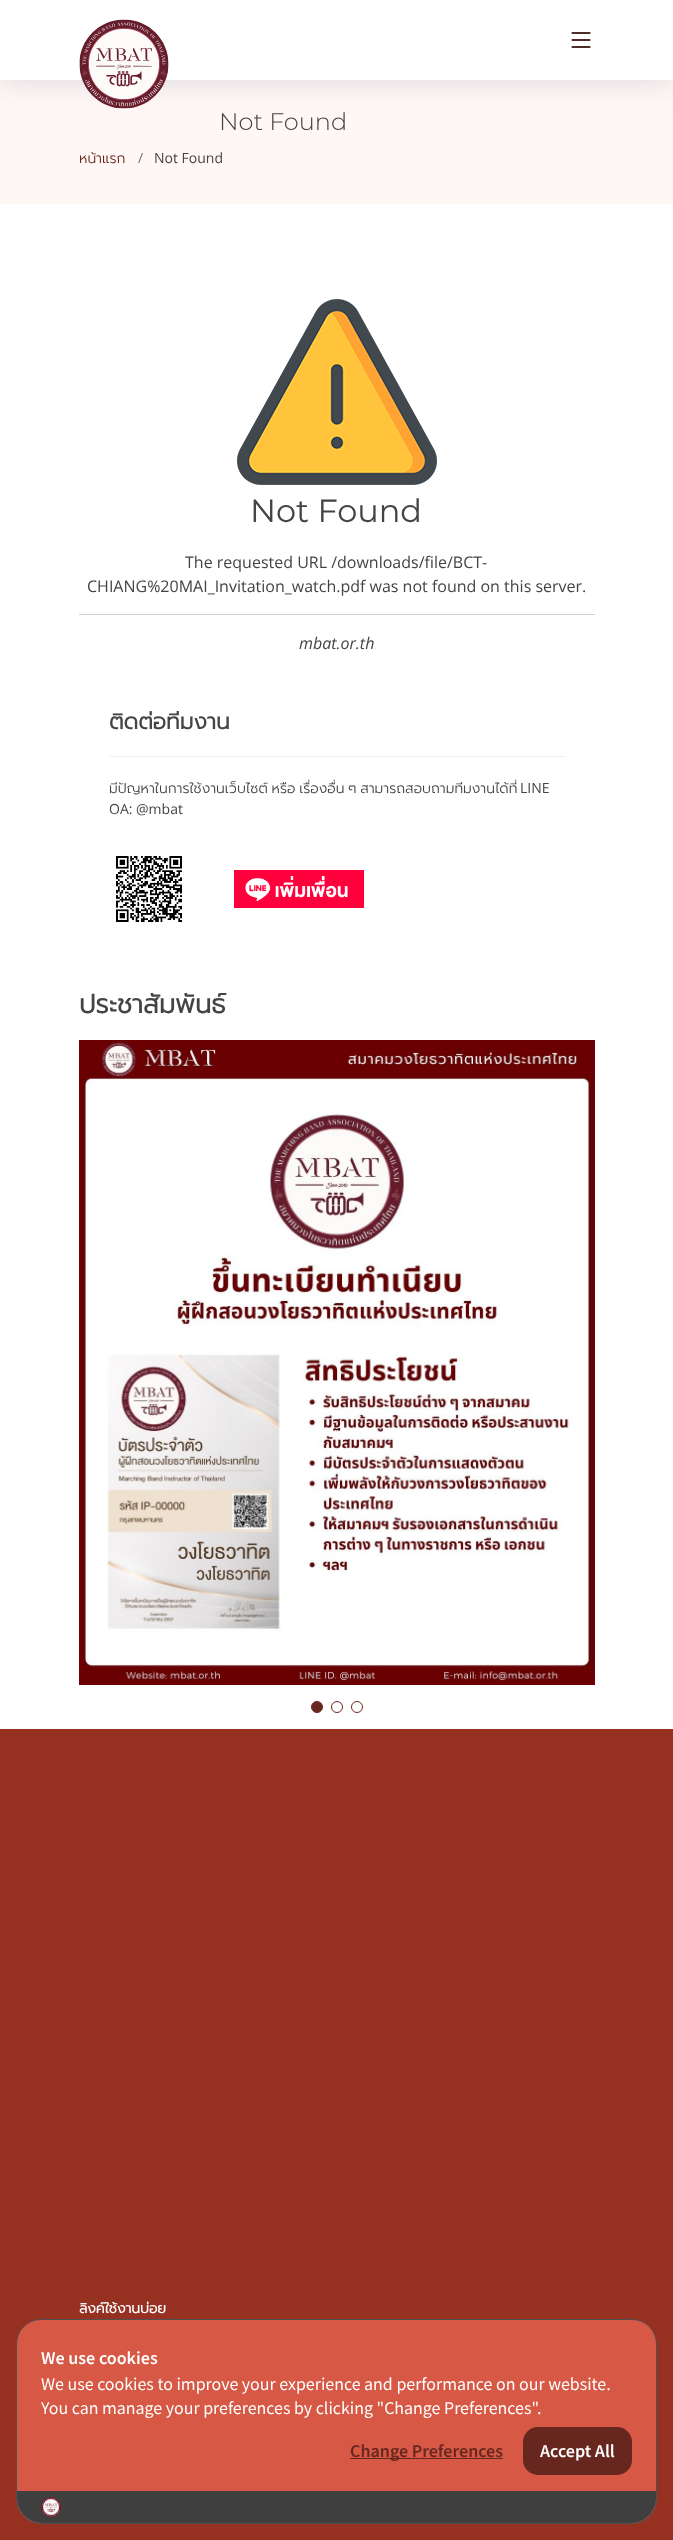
<svg xmlns="http://www.w3.org/2000/svg" width="673" height="2540" viewBox="0 0 673 2540">
  <defs>
    <filter id="blur1" x="-50%" y="-200%" width="200%" height="500%"><feGaussianBlur stdDeviation="15"/></filter>
  </defs>
  <rect width="100%" height="100%" fill="#ffffff"/>
  <rect x="0" y="80" width="673" height="124" fill="#fff7f5"/>
  <rect x="0" y="0" width="673" height="80" fill="#7f89a1" fill-opacity="0.3" filter="url(#blur1)"/>
  <rect x="0" y="0" width="673" height="80" fill="#ffffff"/>
  <image x="79" y="19" width="90" height="90" href="img1.png"/>
  <image x="571" y="32" width="20" height="16" href="img2.png"/>
  <text x="219" y="130" font-family="Montserrat" font-size="24" font-weight="300" fill="#444444">Not Found</text>
  <text x="79" y="163" font-family="Prompt" font-size="14" font-weight="300" fill="#68271e">หน้าแรก</text>
  <text x="138" y="163" font-family="Open Sans" font-size="14" fill="#6c757d">/</text>
  <text x="154" y="163" font-family="Open Sans" font-size="14" fill="#444444">Not Found</text>
  <image x="237" y="299" width="200" height="186" href="img3.png"/>
  <text x="250" y="522" font-family="Montserrat" font-size="32" fill="#444444">Not Found</text>
  <text x="185" y="568" font-family="Open Sans" font-size="16" fill="#444444">The requested URL /downloads/file/BCT-</text>
  <text x="87" y="592" font-family="Open Sans" font-size="16" fill="#444444">CHIANG%20MAI_Invitation_watch.pdf was not found on this server.</text>
  <rect x="79" y="614" width="516" height="1" fill="#d0d0d0"/>
  <text x="299" y="649" font-family="Open Sans" font-size="16" font-style="italic" fill="#444444">mbat.or.th</text>
  <rect x="109" y="756" width="456" height="1" fill="#eeeeee"/>
  <text x="109" y="729" font-family="Prompt" font-size="22" font-weight="bold" fill="#444444">ติดต่อทีมงาน</text>
  <text x="109" y="793" word-spacing="-1.5" font-family="Prompt" font-size="14" font-weight="300" fill="#444444">มีปัญหาในการใช้งานเว็บไซต์ หรือ เรื่องอื่น ๆ สามารถสอบถามทีมงานได้ที่</text>
  <text x="520" y="793" font-family="Open Sans" font-size="14" fill="#444444">LINE</text>
  <text x="109" y="814" font-family="Open Sans" font-size="14" fill="#444444">OA: @mbat</text>
  <image x="109" y="850" width="78" height="78" href="img4.png"/>
  <image x="234" y="870" width="130" height="38" href="img5.png"/>
  <text x="79" y="1013" font-family="Prompt" font-size="26" font-weight="bold" fill="#444444">ประชาสัมพันธ์</text>
  <image x="79" y="1040" width="516" height="645" href="img6.png"/>
  <circle cx="317" cy="1707" r="5.5" fill="#68271e" stroke="#68271e"/>
  <circle cx="337" cy="1707" r="5.5" fill="none" stroke="#68271e"/>
  <circle cx="357" cy="1707" r="5.5" fill="none" stroke="#68271e"/>
  <rect x="0" y="1729" width="673" height="811" fill="#963122"/>
  <text x="79" y="2313" font-family="Prompt" font-size="14" font-weight="bold" fill="#ffffff">ลิงค์ใช้งานบ่อย</text>
  <rect x="16.5" y="2319.5" width="640" height="204" rx="24.5" fill="#d65845" stroke="#505050"/>
  <text x="41" y="2364" font-family="Noto Sans JP" font-size="16" font-weight="600" fill="#ffffff">We use cookies</text>
  <text x="41" y="2390" font-family="Noto Sans JP" font-size="16" fill="#ffffff">We use cookies to improve your experience and performance on our website.</text>
  <text x="41" y="2414" font-family="Noto Sans JP" font-size="16" fill="#ffffff">You can manage your preferences by clicking "Change Preferences".</text>
  <rect x="350" y="2458" width="153" height="1" fill="#68271e"/>
  <text x="350" y="2457" font-family="Noto Sans JP" font-size="16" font-weight="600" fill="#68271e">Change Preferences</text>
  <rect x="523" y="2427" width="109" height="48" rx="15" fill="#68271e"/>
  <text x="540" y="2457" font-family="Noto Sans JP" font-size="16" font-weight="600" fill="#ffffff">Accept All</text>
  <path d="M17 2491H656V2498C656 2512 645 2523 631 2523H42C28 2523 17 2512 17 2498Z" fill="#3f3f3f"/>
  <image x="41" y="2497" width="20" height="20" href="img7.png"/>
</svg>
